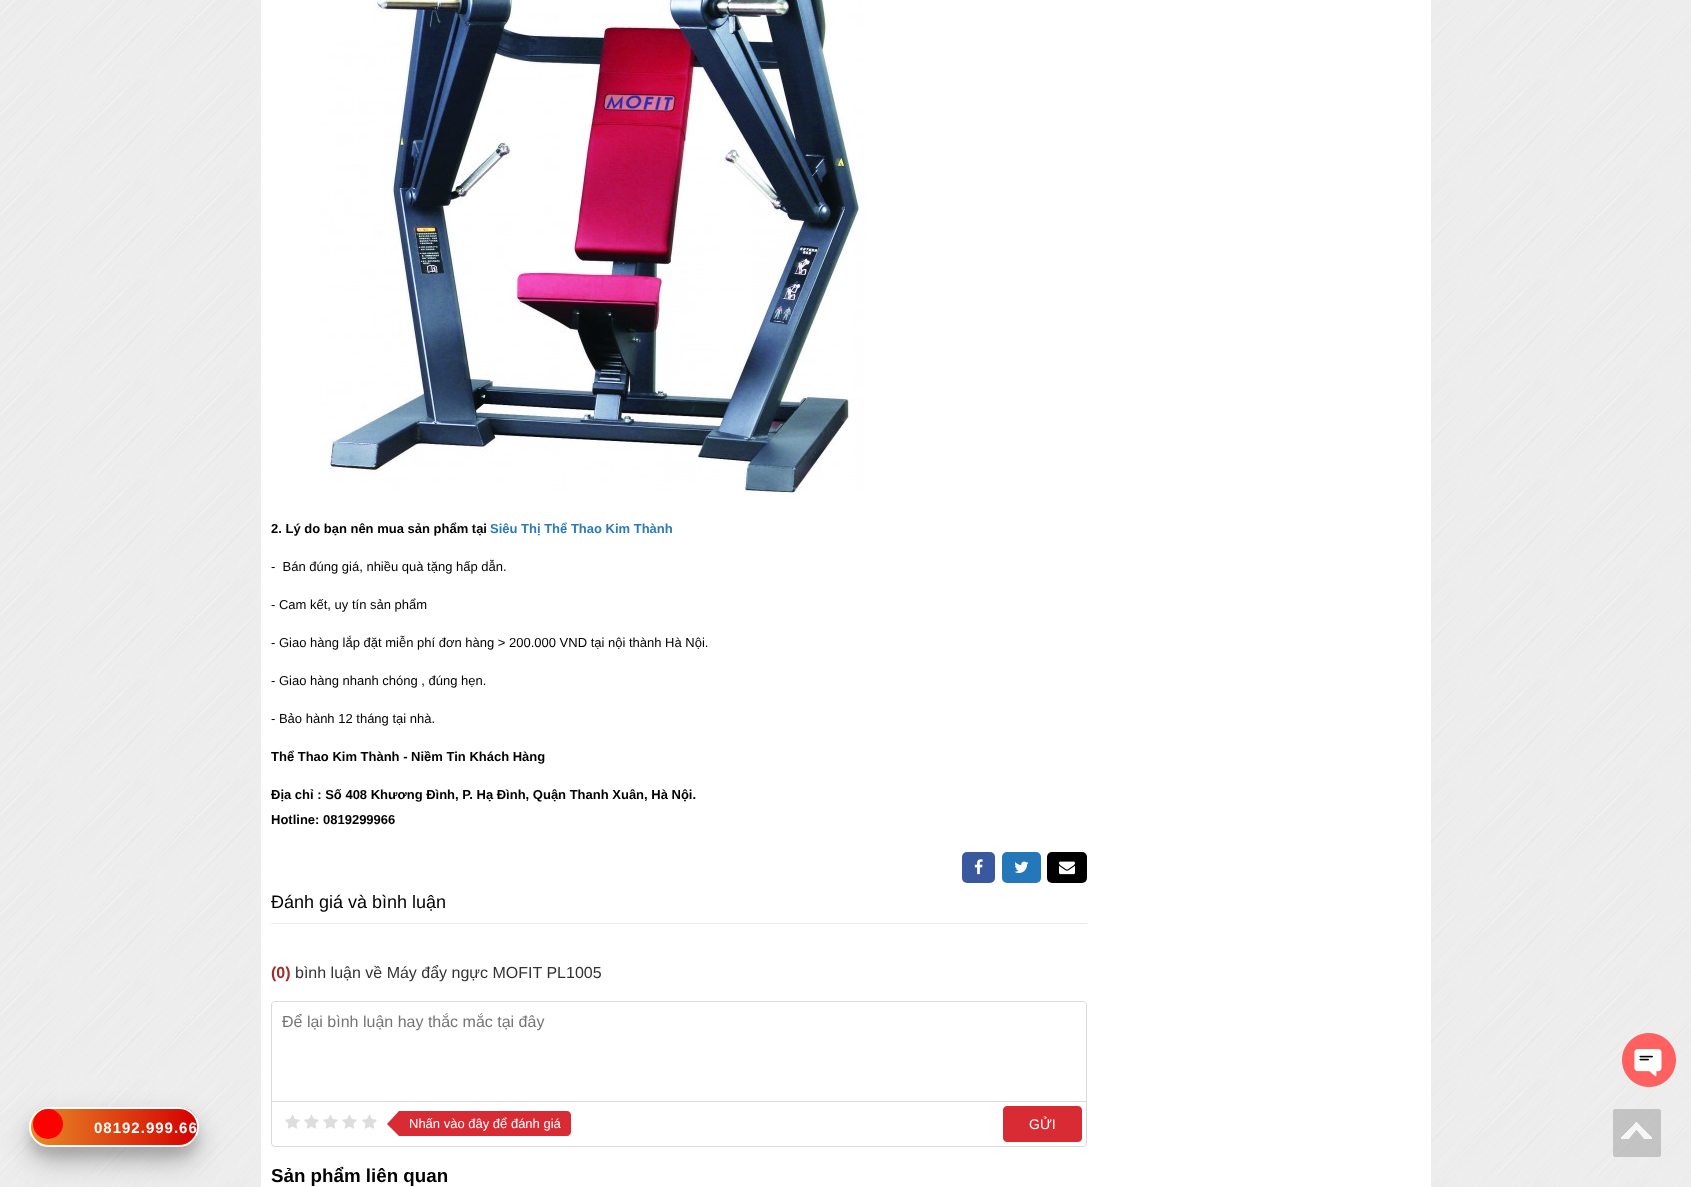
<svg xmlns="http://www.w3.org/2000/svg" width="1691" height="1187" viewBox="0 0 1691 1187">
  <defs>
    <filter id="blur1" x="-50%" y="-200%" width="200%" height="500%"><feGaussianBlur stdDeviation="5"/></filter>
    <filter id="blur2" x="-50%" y="-200%" width="200%" height="500%"><feGaussianBlur stdDeviation="14"/></filter>
    <clipPath id="clip1"><rect x="29" y="1107" width="170" height="40" rx="20"/></clipPath>
    <linearGradient id="g1" gradientUnits="userSpaceOnUse" x1="31" y1="1127" x2="197" y2="1127"><stop offset="0" stop-color="#e88a25"/><stop offset="1" stop-color="#d40000"/></linearGradient>
  </defs>
  <rect width="100%" height="100%" fill="#ffffff"/>
  <image x="0" y="0" width="1691" height="1187" href="img1.png"/>
  <rect x="261" y="0" width="1170" height="1187" fill="#ffffff"/>
  <image x="320" y="0" width="543" height="493" href="img2.png"/>
  <text x="271" y="533" font-family="Liberation Sans" font-size="13" font-weight="bold" fill="#000000">2. Lý do bạn nên mua sản phẩm tại</text>
  <text x="490" y="533" font-family="Liberation Sans" font-size="13" font-weight="bold" fill="#2b7bb9">Siêu Thị Thể Thao Kim Thành</text>
  <text x="271" y="571" font-family="Liberation Sans" font-size="13" fill="#000000" xml:space="preserve">-  Bán đúng giá, nhiều quà tặng hấp dẫn.</text>
  <text x="271" y="609" font-family="Liberation Sans" font-size="13" fill="#000000">- Cam kết, uy tín sản phẩm</text>
  <text x="271" y="647" font-family="Liberation Sans" font-size="13" fill="#000000">- Giao hàng lắp đặt miễn phí đơn hàng &gt; 200.000 VND tại nội thành Hà Nội.</text>
  <text x="271" y="685" font-family="Liberation Sans" font-size="13" fill="#000000">- Giao hàng nhanh chóng , đúng hẹn.</text>
  <text x="271" y="723" font-family="Liberation Sans" font-size="13" fill="#000000">- Bảo hành 12 tháng tại nhà.</text>
  <text x="271" y="761" font-family="Liberation Sans" font-size="13" font-weight="bold" fill="#000000">Thể Thao Kim Thành - Niềm Tin Khách Hàng</text>
  <text x="271" y="799" font-family="Liberation Sans" font-size="13" font-weight="bold" fill="#000000">Địa chỉ : Số 408 Khương Đình, P. Hạ Đình, Quận Thanh Xuân, Hà Nội.</text>
  <text x="271" y="824" font-family="Liberation Sans" font-size="13" font-weight="bold" fill="#000000">Hotline: 0819299966</text>
  <rect x="962" y="852" width="33" height="31" rx="5" fill="#3a589d"/>
  <image x="974" y="859" width="9" height="16" href="img3.png"/>
  <rect x="1002" y="852" width="39" height="31" rx="5" fill="#2478ba"/>
  <image x="1014" y="861" width="15" height="12" href="img4.png"/>
  <rect x="1047" y="852" width="40" height="31" rx="5" fill="#000000"/>
  <image x="1059" y="861" width="16" height="14" href="img5.png"/>
  <rect x="271" y="923" width="816" height="1" fill="#e9ebee"/>
  <text x="271" y="908" font-family="Liberation Sans" font-size="18" fill="#000000">Đánh giá và bình luận</text>
  <text x="271" y="978" font-family="Liberation Sans" font-size="16" font-weight="bold" fill="#a52a2a">(0)</text>
  <text x="295" y="978" font-family="Liberation Sans" font-size="16" fill="#333333">bình luận về Máy đẩy ngực MOFIT PL1005</text>
  <rect x="271.5" y="1001.5" width="815" height="145" rx="3.5" fill="none" stroke="#dadada"/>
  <path d="M275 1002H1083C1084.5 1002 1086 1003.5 1086 1005V1102H272V1005C272 1003.5 273.5 1002 275 1002Z" fill="#ffffff"/>
  <rect x="272" y="1101" width="814" height="1" fill="#dadada"/>
  <text x="282" y="1027" font-family="Liberation Sans" font-size="16" fill="#757575">Để lại bình luận hay thắc mắc tại đây</text>
  <image x="285" y="1114" width="15" height="15" href="img6.png"/>
  <image x="304" y="1114" width="15" height="15" href="img6.png"/>
  <image x="323" y="1114" width="15" height="15" href="img6.png"/>
  <image x="342" y="1114" width="15" height="15" href="img6.png"/>
  <image x="362" y="1114" width="15" height="15" href="img6.png"/>
  <path d="M399 1111H567C569 1111 571 1113 571 1115V1132C571 1134 569 1136 567 1136H399Z" fill="#d92b34"/>
  <path d="M399 1111V1136L387 1124Z" fill="#d92b34"/>
  <text x="409" y="1128" font-family="Liberation Sans" font-size="13" fill="#ffffff">Nhấn vào đây để đánh giá</text>
  <rect x="1003.5" y="1106.5" width="78" height="35" rx="3.5" fill="#d92b34" stroke="#d92b34"/>
  <text x="1029" y="1129" font-family="Liberation Sans" font-size="14" fill="#ffffff">GỬI</text>
  <text x="271" y="1182" font-family="Liberation Sans" font-size="18.75" font-weight="bold" fill="#000000">Sản phẩm liên quan</text>
  <image x="1622" y="1033" width="54" height="54" href="img7.png"/>
  <rect x="29" y="1117" width="170" height="40" rx="20" fill="#000000" fill-opacity="0.1" filter="url(#blur1)"/>
  <rect x="29" y="1121" width="170" height="40" rx="20" fill="#000000" fill-opacity="0.25" filter="url(#blur2)"/>
  <g clip-path="url(#clip1)">
    <rect x="31" y="1107" width="166" height="40" fill="url(#g1)"/>
  </g>
  <rect x="30" y="1108" width="168" height="38" rx="19" fill="none" stroke="#ffffff" stroke-width="2"/>
  <circle cx="48" cy="1124" r="15" fill="#ff0000"/>
  <text x="94" y="1133" font-family="Liberation Sans" font-size="15" font-weight="bold" letter-spacing="1" fill="#ffffff">08192.999.66</text>
  <image x="1613" y="1109" width="48" height="48" href="img8.png"/>
</svg>
